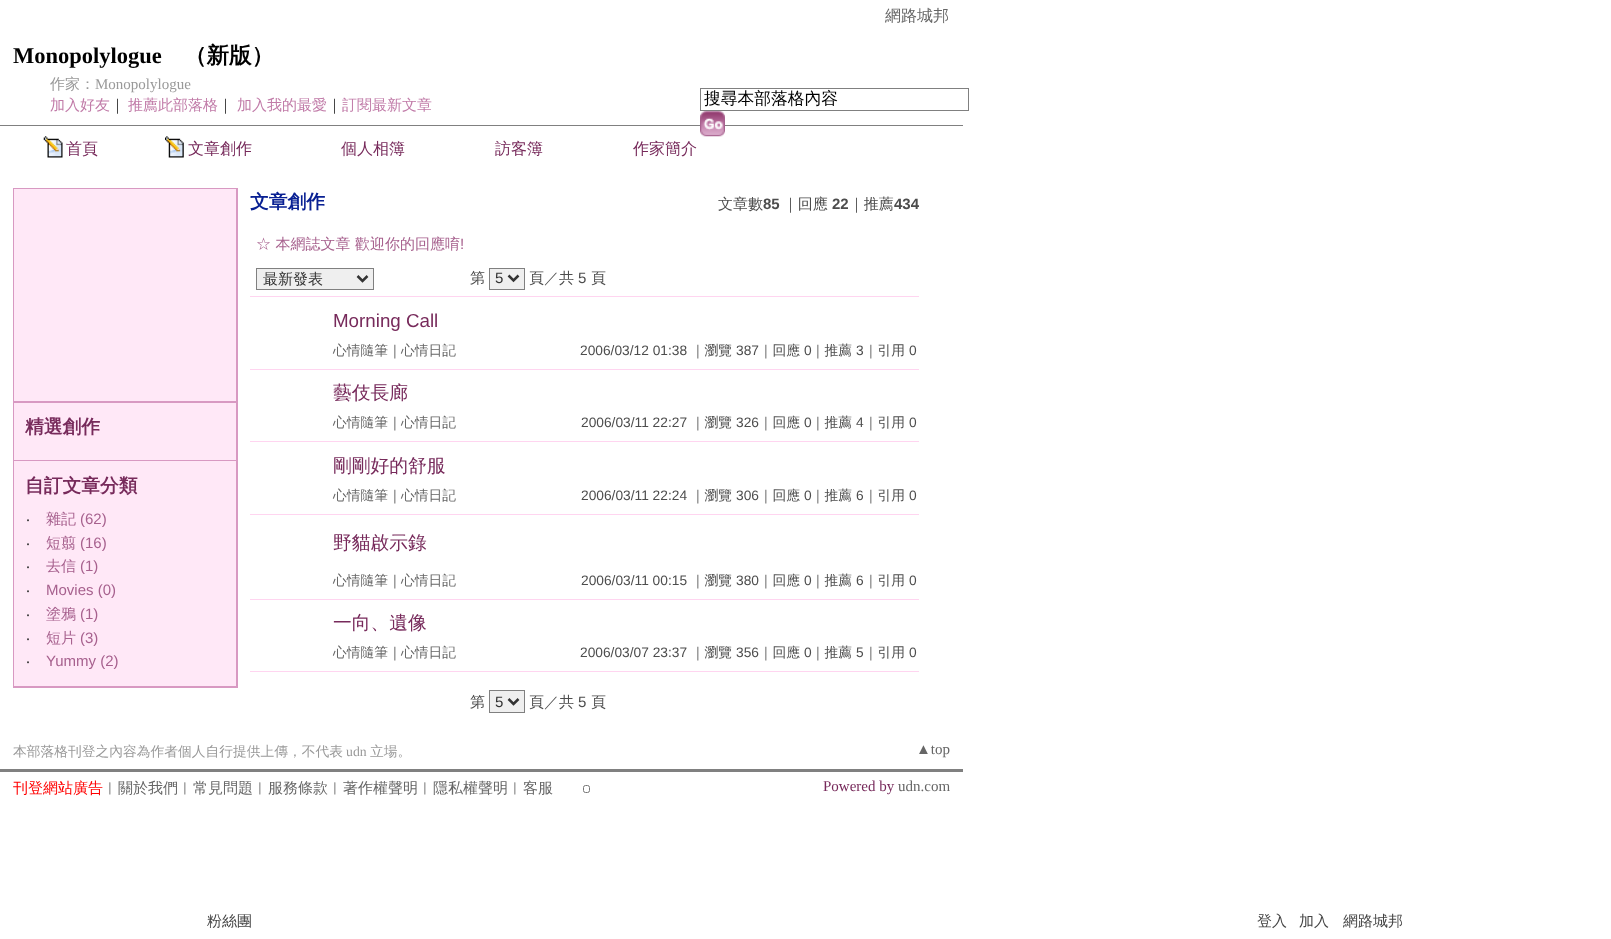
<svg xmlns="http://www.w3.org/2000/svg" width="1611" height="939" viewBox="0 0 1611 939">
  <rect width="100%" height="100%" fill="#ffffff"/>
  <text x="885" y="21" font-family="WenQuanYi Zen Hei" font-size="16" font-weight="500" fill="#666666">網路城邦</text>
  <text x="13" y="63" font-family="Liberation Serif" font-size="22.5" font-weight="bold" fill="#000000">Monopolylogue</text>
  <text x="184" y="63" font-family="WenQuanYi Zen Hei" font-size="22.5" font-weight="bold" fill="#000000">（新版）</text>
  <text x="50" y="89" font-family="WenQuanYi Zen Hei" font-size="15" font-weight="500" fill="#999999">作家：</text>
  <text x="95" y="89" font-family="Liberation Serif" font-size="15" fill="#999999">Monopolylogue</text>
  <text x="50" y="110" font-family="WenQuanYi Zen Hei" font-size="15" font-weight="500" fill="#c17ba8">加入好友</text>
  <text x="110" y="110" font-family="WenQuanYi Zen Hei" font-size="15" font-weight="500" fill="#333333">｜</text>
  <text x="128" y="110" font-family="WenQuanYi Zen Hei" font-size="15" font-weight="500" fill="#c17ba8">推薦此部落格</text>
  <text x="218" y="110" font-family="WenQuanYi Zen Hei" font-size="15" font-weight="500" fill="#333333">｜</text>
  <text x="237" y="110" font-family="WenQuanYi Zen Hei" font-size="15" font-weight="500" fill="#c17ba8">加入我的最愛</text>
  <text x="327" y="110" font-family="WenQuanYi Zen Hei" font-size="15" font-weight="500" fill="#333333">｜</text>
  <text x="342" y="110" font-family="WenQuanYi Zen Hei" font-size="15" font-weight="500" fill="#c17ba8">訂閱最新文章</text>
  <rect x="700.5" y="88.5" width="268" height="22" fill="none" stroke="#808080"/>
  <text x="704" y="104" font-family="WenQuanYi Zen Hei" font-size="16.75" font-weight="500" fill="#000000">搜尋本部落格內容</text>
  <rect x="0" y="125" width="963" height="1" fill="#808080"/>
  <image x="700" y="111" width="25" height="26" href="img1.png"/>
  <image x="43" y="136" width="20" height="22" href="img2.png"/>
  <text x="66" y="154" font-family="WenQuanYi Zen Hei" font-size="16" font-weight="500" fill="#772a5b">首頁</text>
  <image x="165" y="136" width="19" height="22" href="img3.png"/>
  <text x="188" y="154" font-family="WenQuanYi Zen Hei" font-size="16" font-weight="500" fill="#772a5b">文章創作</text>
  <text x="341" y="154" font-family="WenQuanYi Zen Hei" font-size="16" font-weight="500" fill="#772a5b">個人相簿</text>
  <text x="495" y="154" font-family="WenQuanYi Zen Hei" font-size="16" font-weight="500" fill="#772a5b">訪客簿</text>
  <text x="633" y="154" font-family="WenQuanYi Zen Hei" font-size="16" font-weight="500" fill="#772a5b">作家簡介</text>
  <rect x="13" y="188" width="225" height="500" fill="#d899c2"/>
  <rect x="14" y="189" width="222" height="212" fill="#ffe8f7"/>
  <rect x="14" y="403" width="222" height="57" fill="#ffe8f7"/>
  <text x="25" y="433" font-family="WenQuanYi Zen Hei" font-size="18.75" font-weight="bold" fill="#772a5b">精選創作</text>
  <rect x="14" y="461" width="222" height="225" fill="#ffe8f7"/>
  <text x="25" y="492" font-family="WenQuanYi Zen Hei" font-size="18.75" font-weight="bold" fill="#772a5b">自訂文章分類</text>
  <text x="26" y="524" font-family="Noto Sans" font-size="15" fill="#333333">‧</text>
  <text x="46" y="524" font-family="WenQuanYi Zen Hei" font-size="15" font-weight="500" fill="#a7618e">雜記</text>
  <text x="80" y="524" font-family="Liberation Sans" font-size="15" fill="#a7618e">(62)</text>
  <text x="26" y="548" font-family="Noto Sans" font-size="15" fill="#333333">‧</text>
  <text x="46" y="548" font-family="WenQuanYi Zen Hei" font-size="15" font-weight="500" fill="#a7618e">短翦</text>
  <text x="80" y="548" font-family="Liberation Sans" font-size="15" fill="#a7618e">(16)</text>
  <text x="26" y="571" font-family="Noto Sans" font-size="15" fill="#333333">‧</text>
  <text x="46" y="571" font-family="WenQuanYi Zen Hei" font-size="15" font-weight="500" fill="#a7618e">去信</text>
  <text x="80" y="571" font-family="Liberation Sans" font-size="15" fill="#a7618e">(1)</text>
  <text x="26" y="595" font-family="Noto Sans" font-size="15" fill="#333333">‧</text>
  <text x="46" y="595" font-family="Liberation Sans" font-size="15" fill="#a7618e">Movies (0)</text>
  <text x="26" y="619" font-family="Noto Sans" font-size="15" fill="#333333">‧</text>
  <text x="46" y="619" font-family="WenQuanYi Zen Hei" font-size="15" font-weight="500" fill="#a7618e">塗鴉</text>
  <text x="80" y="619" font-family="Liberation Sans" font-size="15" fill="#a7618e">(1)</text>
  <text x="26" y="643" font-family="Noto Sans" font-size="15" fill="#333333">‧</text>
  <text x="46" y="643" font-family="WenQuanYi Zen Hei" font-size="15" font-weight="500" fill="#a7618e">短片</text>
  <text x="80" y="643" font-family="Liberation Sans" font-size="15" fill="#a7618e">(3)</text>
  <text x="26" y="666" font-family="Noto Sans" font-size="15" fill="#333333">‧</text>
  <text x="46" y="666" font-family="Liberation Sans" font-size="15" fill="#a7618e">Yummy (2)</text>
  <text x="250" y="208" font-family="WenQuanYi Zen Hei" font-size="18.75" font-weight="bold" fill="#092093">文章創作</text>
  <text x="718" y="209" font-family="WenQuanYi Zen Hei" font-size="15" font-weight="500" fill="#4d4d4d">文章數</text>
  <text x="763" y="209" font-family="Liberation Sans" font-size="15" font-weight="bold" fill="#4d4d4d">85</text>
  <text x="783" y="209" font-family="WenQuanYi Zen Hei" font-size="15" font-weight="500" fill="#4d4d4d">｜回應</text>
  <text x="832" y="209" font-family="Liberation Sans" font-size="15" font-weight="bold" fill="#4d4d4d">22</text>
  <text x="849" y="209" font-family="WenQuanYi Zen Hei" font-size="15" font-weight="500" fill="#4d4d4d">｜推薦</text>
  <text x="894" y="209" font-family="Liberation Sans" font-size="15" font-weight="bold" fill="#4d4d4d">434</text>
  <text x="256" y="249" font-family="WenQuanYi Zen Hei" font-size="15" font-weight="500" fill="#a7618e">☆ 本網誌文章</text>
  <text x="355" y="249" font-family="WenQuanYi Zen Hei" font-size="15" font-weight="500" fill="#a7618e">歡迎你的回應唷</text>
  <text x="460" y="249" font-family="Liberation Sans" font-size="15" fill="#a7618e">!</text>
  <rect x="256.5" y="268.5" width="117" height="21" fill="#efefef" stroke="#808080"/>
  <path d="M357.5 276L362.5 281L367.5 276" fill="none" stroke="#333333" stroke-width="2.5"/>
  <text x="263" y="284" font-family="WenQuanYi Zen Hei" font-size="15" font-weight="500" fill="#333333">最新發表</text>
  <text x="470" y="283" font-family="WenQuanYi Zen Hei" font-size="15" font-weight="500" fill="#4d4d4d">第</text>
  <rect x="489.5" y="268.5" width="35" height="21" fill="#efefef" stroke="#808080"/>
  <path d="M508.5 275.5L513.5 280.5L518.5 275.5" fill="none" stroke="#333333" stroke-width="2.5"/>
  <text x="495" y="283" font-family="Liberation Sans" font-size="15" fill="#333333">5</text>
  <text x="529" y="283" font-family="WenQuanYi Zen Hei" font-size="15" font-weight="500" fill="#4d4d4d">頁／共</text>
  <text x="578" y="283" font-family="Liberation Sans" font-size="15" fill="#4d4d4d">5</text>
  <text x="591" y="283" font-family="WenQuanYi Zen Hei" font-size="15" font-weight="500" fill="#4d4d4d">頁</text>
  <rect x="250" y="296" width="669" height="1" fill="#ffd5f0"/>
  <text x="333" y="327" font-family="Liberation Sans" font-size="18.75" fill="#772a5b">Morning Call</text>
  <text x="333" y="355" font-family="WenQuanYi Zen Hei" font-size="13.75" font-weight="500" fill="#666666">心情隨筆</text>
  <text x="388" y="355" font-family="WenQuanYi Zen Hei" font-size="13.75" font-weight="500" fill="#4d4d4d">｜</text>
  <text x="401" y="355" font-family="WenQuanYi Zen Hei" font-size="13.75" font-weight="500" fill="#666666">心情日記</text>
  <text x="580" y="355" font-family="Liberation Sans" font-size="13.75" fill="#4d4d4d">2006/03/12 01:38</text>
  <text x="691" y="355" font-family="WenQuanYi Zen Hei" font-size="13.75" font-weight="500" fill="#4d4d4d">｜瀏覽</text>
  <text x="736" y="355" font-family="Liberation Sans" font-size="13.75" fill="#4d4d4d">387</text>
  <text x="759" y="355" font-family="WenQuanYi Zen Hei" font-size="13.75" font-weight="500" fill="#4d4d4d">｜回應</text>
  <text x="804" y="355" font-family="Liberation Sans" font-size="13.75" fill="#4d4d4d">0</text>
  <text x="811" y="355" font-family="WenQuanYi Zen Hei" font-size="13.75" font-weight="500" fill="#4d4d4d">｜推薦</text>
  <text x="856" y="355" font-family="Liberation Sans" font-size="13.75" fill="#4d4d4d">3</text>
  <text x="864" y="355" font-family="WenQuanYi Zen Hei" font-size="13.75" font-weight="500" fill="#4d4d4d">｜引用</text>
  <text x="909" y="355" font-family="Liberation Sans" font-size="13.75" fill="#4d4d4d">0</text>
  <rect x="250" y="369" width="669" height="1" fill="#ffd5f0"/>
  <text x="333" y="399" font-family="WenQuanYi Zen Hei" font-size="18.75" font-weight="500" fill="#772a5b">藝伎長廊</text>
  <text x="333" y="427" font-family="WenQuanYi Zen Hei" font-size="13.75" font-weight="500" fill="#666666">心情隨筆</text>
  <text x="388" y="427" font-family="WenQuanYi Zen Hei" font-size="13.75" font-weight="500" fill="#4d4d4d">｜</text>
  <text x="401" y="427" font-family="WenQuanYi Zen Hei" font-size="13.75" font-weight="500" fill="#666666">心情日記</text>
  <text x="581" y="427" font-family="Liberation Sans" font-size="13.75" fill="#4d4d4d">2006/03/11 22:27</text>
  <text x="691" y="427" font-family="WenQuanYi Zen Hei" font-size="13.75" font-weight="500" fill="#4d4d4d">｜瀏覽</text>
  <text x="736" y="427" font-family="Liberation Sans" font-size="13.75" fill="#4d4d4d">326</text>
  <text x="759" y="427" font-family="WenQuanYi Zen Hei" font-size="13.75" font-weight="500" fill="#4d4d4d">｜回應</text>
  <text x="804" y="427" font-family="Liberation Sans" font-size="13.75" fill="#4d4d4d">0</text>
  <text x="811" y="427" font-family="WenQuanYi Zen Hei" font-size="13.75" font-weight="500" fill="#4d4d4d">｜推薦</text>
  <text x="856" y="427" font-family="Liberation Sans" font-size="13.75" fill="#4d4d4d">4</text>
  <text x="864" y="427" font-family="WenQuanYi Zen Hei" font-size="13.75" font-weight="500" fill="#4d4d4d">｜引用</text>
  <text x="909" y="427" font-family="Liberation Sans" font-size="13.75" fill="#4d4d4d">0</text>
  <rect x="250" y="441" width="669" height="1" fill="#ffd5f0"/>
  <text x="333" y="472" font-family="WenQuanYi Zen Hei" font-size="18.75" font-weight="500" fill="#772a5b">剛剛好的舒服</text>
  <text x="333" y="500" font-family="WenQuanYi Zen Hei" font-size="13.75" font-weight="500" fill="#666666">心情隨筆</text>
  <text x="388" y="500" font-family="WenQuanYi Zen Hei" font-size="13.75" font-weight="500" fill="#4d4d4d">｜</text>
  <text x="401" y="500" font-family="WenQuanYi Zen Hei" font-size="13.75" font-weight="500" fill="#666666">心情日記</text>
  <text x="581" y="500" font-family="Liberation Sans" font-size="13.75" fill="#4d4d4d">2006/03/11 22:24</text>
  <text x="691" y="500" font-family="WenQuanYi Zen Hei" font-size="13.75" font-weight="500" fill="#4d4d4d">｜瀏覽</text>
  <text x="736" y="500" font-family="Liberation Sans" font-size="13.75" fill="#4d4d4d">306</text>
  <text x="759" y="500" font-family="WenQuanYi Zen Hei" font-size="13.75" font-weight="500" fill="#4d4d4d">｜回應</text>
  <text x="804" y="500" font-family="Liberation Sans" font-size="13.75" fill="#4d4d4d">0</text>
  <text x="811" y="500" font-family="WenQuanYi Zen Hei" font-size="13.75" font-weight="500" fill="#4d4d4d">｜推薦</text>
  <text x="856" y="500" font-family="Liberation Sans" font-size="13.75" fill="#4d4d4d">6</text>
  <text x="864" y="500" font-family="WenQuanYi Zen Hei" font-size="13.75" font-weight="500" fill="#4d4d4d">｜引用</text>
  <text x="909" y="500" font-family="Liberation Sans" font-size="13.75" fill="#4d4d4d">0</text>
  <rect x="250" y="514" width="669" height="1" fill="#ffd5f0"/>
  <text x="333" y="549" font-family="WenQuanYi Zen Hei" font-size="18.75" font-weight="500" fill="#772a5b">野貓啟示錄</text>
  <text x="333" y="585" font-family="WenQuanYi Zen Hei" font-size="13.75" font-weight="500" fill="#666666">心情隨筆</text>
  <text x="388" y="585" font-family="WenQuanYi Zen Hei" font-size="13.75" font-weight="500" fill="#4d4d4d">｜</text>
  <text x="401" y="585" font-family="WenQuanYi Zen Hei" font-size="13.75" font-weight="500" fill="#666666">心情日記</text>
  <text x="581" y="585" font-family="Liberation Sans" font-size="13.75" fill="#4d4d4d">2006/03/11 00:15</text>
  <text x="691" y="585" font-family="WenQuanYi Zen Hei" font-size="13.75" font-weight="500" fill="#4d4d4d">｜瀏覽</text>
  <text x="736" y="585" font-family="Liberation Sans" font-size="13.75" fill="#4d4d4d">380</text>
  <text x="759" y="585" font-family="WenQuanYi Zen Hei" font-size="13.75" font-weight="500" fill="#4d4d4d">｜回應</text>
  <text x="804" y="585" font-family="Liberation Sans" font-size="13.75" fill="#4d4d4d">0</text>
  <text x="811" y="585" font-family="WenQuanYi Zen Hei" font-size="13.75" font-weight="500" fill="#4d4d4d">｜推薦</text>
  <text x="856" y="585" font-family="Liberation Sans" font-size="13.75" fill="#4d4d4d">6</text>
  <text x="864" y="585" font-family="WenQuanYi Zen Hei" font-size="13.75" font-weight="500" fill="#4d4d4d">｜引用</text>
  <text x="909" y="585" font-family="Liberation Sans" font-size="13.75" fill="#4d4d4d">0</text>
  <rect x="250" y="599" width="669" height="1" fill="#ffd5f0"/>
  <text x="333" y="629" font-family="WenQuanYi Zen Hei" font-size="18.75" font-weight="500" fill="#772a5b">一向、遺像</text>
  <text x="333" y="657" font-family="WenQuanYi Zen Hei" font-size="13.75" font-weight="500" fill="#666666">心情隨筆</text>
  <text x="388" y="657" font-family="WenQuanYi Zen Hei" font-size="13.75" font-weight="500" fill="#4d4d4d">｜</text>
  <text x="401" y="657" font-family="WenQuanYi Zen Hei" font-size="13.75" font-weight="500" fill="#666666">心情日記</text>
  <text x="580" y="657" font-family="Liberation Sans" font-size="13.75" fill="#4d4d4d">2006/03/07 23:37</text>
  <text x="691" y="657" font-family="WenQuanYi Zen Hei" font-size="13.75" font-weight="500" fill="#4d4d4d">｜瀏覽</text>
  <text x="736" y="657" font-family="Liberation Sans" font-size="13.75" fill="#4d4d4d">356</text>
  <text x="759" y="657" font-family="WenQuanYi Zen Hei" font-size="13.75" font-weight="500" fill="#4d4d4d">｜回應</text>
  <text x="804" y="657" font-family="Liberation Sans" font-size="13.75" fill="#4d4d4d">0</text>
  <text x="811" y="657" font-family="WenQuanYi Zen Hei" font-size="13.75" font-weight="500" fill="#4d4d4d">｜推薦</text>
  <text x="856" y="657" font-family="Liberation Sans" font-size="13.75" fill="#4d4d4d">5</text>
  <text x="864" y="657" font-family="WenQuanYi Zen Hei" font-size="13.75" font-weight="500" fill="#4d4d4d">｜引用</text>
  <text x="909" y="657" font-family="Liberation Sans" font-size="13.75" fill="#4d4d4d">0</text>
  <rect x="250" y="671" width="669" height="1" fill="#ffd5f0"/>
  <text x="470" y="707" font-family="WenQuanYi Zen Hei" font-size="15" font-weight="500" fill="#4d4d4d">第</text>
  <rect x="489.5" y="690.5" width="35" height="22" fill="#efefef" stroke="#808080"/>
  <path d="M508.5 699L513.5 704L518.5 699" fill="none" stroke="#333333" stroke-width="2.5"/>
  <text x="495" y="707" font-family="Liberation Sans" font-size="15" fill="#333333">5</text>
  <text x="529" y="707" font-family="WenQuanYi Zen Hei" font-size="15" font-weight="500" fill="#4d4d4d">頁／共</text>
  <text x="578" y="707" font-family="Liberation Sans" font-size="15" fill="#4d4d4d">5</text>
  <text x="591" y="707" font-family="WenQuanYi Zen Hei" font-size="15" font-weight="500" fill="#4d4d4d">頁</text>
  <rect x="0" y="769" width="963" height="3" fill="#808080"/>
  <text x="13" y="756" font-family="WenQuanYi Zen Hei" font-size="13.75" font-weight="500" fill="#999999">本部落格刊登之內容為作者個人自行提供上傳，不代表</text>
  <text x="346" y="756" font-family="Liberation Serif" font-size="13.75" fill="#999999">udn</text>
  <text x="370" y="756" font-family="WenQuanYi Zen Hei" font-size="13.75" font-weight="500" fill="#999999">立場。</text>
  <text x="916" y="754" font-family="Liberation Serif" font-size="15" fill="#666666">▲top</text>
  <text x="13" y="793" font-family="WenQuanYi Zen Hei" font-size="15" font-weight="500" fill="#ff0000">刊登網站廣告</text>
  <text x="103" y="793" font-family="WenQuanYi Zen Hei" font-size="15" font-weight="500" fill="#333333">︱</text>
  <text x="118" y="793" font-family="WenQuanYi Zen Hei" font-size="15" font-weight="500" fill="#666666">關於我們</text>
  <text x="178" y="793" font-family="WenQuanYi Zen Hei" font-size="15" font-weight="500" fill="#333333">︱</text>
  <text x="193" y="793" font-family="WenQuanYi Zen Hei" font-size="15" font-weight="500" fill="#666666">常見問題</text>
  <text x="253" y="793" font-family="WenQuanYi Zen Hei" font-size="15" font-weight="500" fill="#333333">︱</text>
  <text x="268" y="793" font-family="WenQuanYi Zen Hei" font-size="15" font-weight="500" fill="#666666">服務條款</text>
  <text x="328" y="793" font-family="WenQuanYi Zen Hei" font-size="15" font-weight="500" fill="#333333">︱</text>
  <text x="343" y="793" font-family="WenQuanYi Zen Hei" font-size="15" font-weight="500" fill="#666666">著作權聲明</text>
  <text x="418" y="793" font-family="WenQuanYi Zen Hei" font-size="15" font-weight="500" fill="#333333">︱</text>
  <text x="433" y="793" font-family="WenQuanYi Zen Hei" font-size="15" font-weight="500" fill="#666666">隱私權聲明</text>
  <text x="508" y="793" font-family="WenQuanYi Zen Hei" font-size="15" font-weight="500" fill="#333333">︱</text>
  <text x="523" y="793" font-family="WenQuanYi Zen Hei" font-size="15" font-weight="500" fill="#666666">客服</text>
  <rect x="583.5" y="785.5" width="6" height="7" rx="2" fill="none" stroke="#767676"/>
  <text x="823" y="791" font-family="Liberation Serif" font-size="15" fill="#772a5b">Powered by</text>
  <text x="898" y="791" font-family="Liberation Serif" font-size="15" fill="#666666">udn.com</text>
  <text x="207" y="926" font-family="WenQuanYi Zen Hei" font-size="15" font-weight="500" fill="#444444">粉絲團</text>
  <text x="1257" y="926" font-family="WenQuanYi Zen Hei" font-size="15" font-weight="500" fill="#444444">登入</text>
  <text x="1299" y="926" font-family="WenQuanYi Zen Hei" font-size="15" font-weight="500" fill="#444444">加入</text>
  <text x="1343" y="926" font-family="WenQuanYi Zen Hei" font-size="15" font-weight="500" fill="#444444">網路城邦</text>
</svg>
